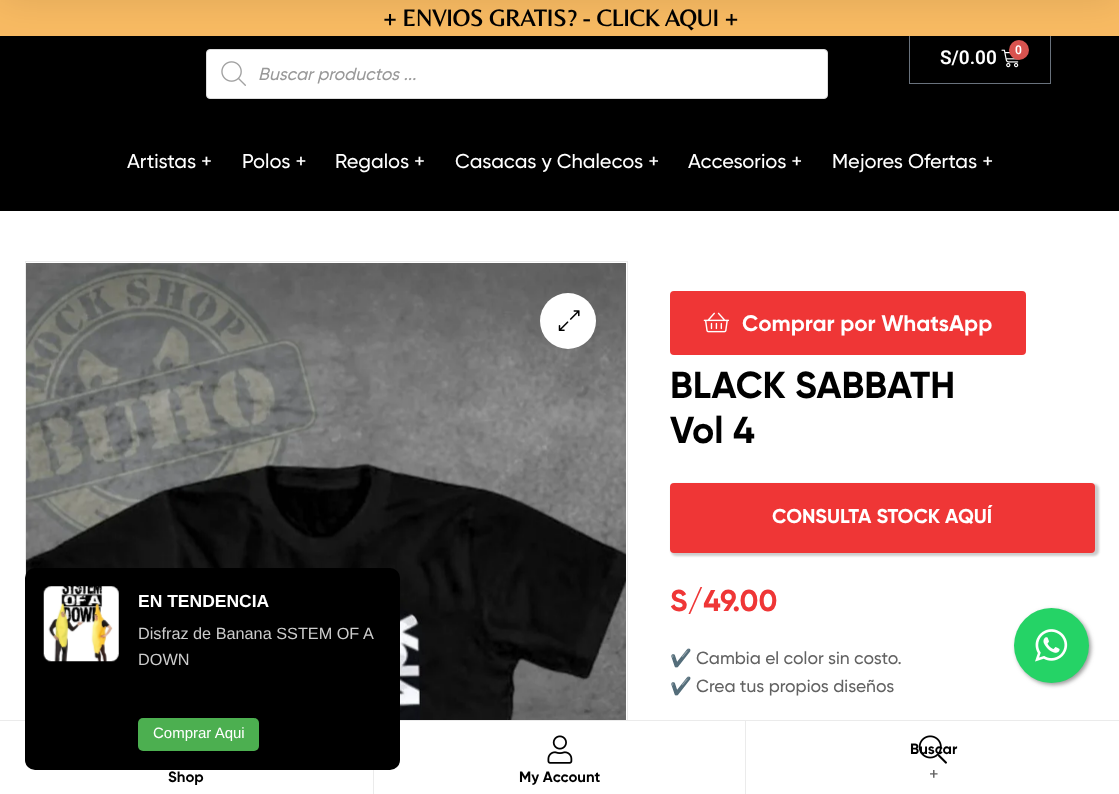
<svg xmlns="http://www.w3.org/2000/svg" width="1119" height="794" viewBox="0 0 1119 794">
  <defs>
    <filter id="blur1" x="-50%" y="-200%" width="200%" height="500%"><feGaussianBlur stdDeviation="19"/></filter>
    <filter id="blur2" x="-50%" y="-200%" width="200%" height="500%"><feGaussianBlur stdDeviation="1"/></filter>
    <filter id="blur3" x="-50%" y="-200%" width="200%" height="500%"><feGaussianBlur stdDeviation="2"/></filter>
  </defs>
  <rect width="100%" height="100%" fill="#ffffff"/>
  <rect x="0" y="36" width="1119" height="175" fill="#000000"/>
  <rect x="909.5" y="33.5" width="141" height="50" fill="none" stroke="#69727d"/>
  <rect x="0" y="0" width="1119" height="36" fill="#f8ba62"/>
  <image x="1001" y="49" width="18" height="19" href="img1.png"/>
  <circle cx="1019" cy="50" r="10" fill="#d9534f"/>
  <rect x="206.5" y="49.5" width="621" height="49" rx="3.5" fill="#ffffff" stroke="#dddddd"/>
  <rect x="0" y="-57" width="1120" height="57" fill="#000000" fill-opacity="0.1" filter="url(#blur1)"/>
  <text x="383" y="26" font-family="Belleza" font-size="23.75" font-weight="bold" fill="#000000">+ ENVIOS GRATIS? - CLICK AQUI +</text>
  <text x="940" y="64" font-family="Roboto" font-size="19" font-weight="600" fill="#ffffff">S/0.00</text>
  <text x="1015" y="54" font-family="Roboto" font-size="12" font-weight="600" fill="#ffffff">0</text>
  <image x="221" y="61" width="25" height="25" href="img2.png"/>
  <text x="258" y="80" font-family="Gilroy" font-size="17.5" font-weight="500" font-style="italic" fill="#999999">Buscar productos ...</text>
  <text x="127" y="168" font-family="Gilroy" font-size="20" font-weight="500" fill="#ffffff">Artistas +</text>
  <text x="242" y="168" font-family="Gilroy" font-size="20" font-weight="500" fill="#ffffff">Polos +</text>
  <text x="335" y="168" font-family="Gilroy" font-size="20" font-weight="500" fill="#ffffff">Regalos +</text>
  <text x="455" y="168" font-family="Gilroy" font-size="20" font-weight="500" fill="#ffffff">Casacas y Chalecos +</text>
  <text x="688" y="168" font-family="Gilroy" font-size="20" font-weight="500" fill="#ffffff">Accesorios +</text>
  <text x="832" y="168" font-family="Gilroy" font-size="20" font-weight="500" fill="#ffffff">Mejores Ofertas +</text>
  <rect x="25.5" y="261.5" width="602" height="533" fill="none" stroke="#ebebeb"/>
  <image x="26" y="263" width="600" height="457" href="img3.png"/>
  <circle cx="568" cy="321" r="28" fill="#ffffff"/>
  <image x="558" y="310" width="22" height="21" href="img4.png"/>
  <rect x="671.5" y="292.5" width="353" height="61" rx="2.5" fill="#ef3636" stroke="#ef3636" stroke-width="3"/>
  <image x="703" y="312" width="27" height="21" href="img5.png"/>
  <text x="742" y="331" font-family="Gilroy" font-size="22.5" font-weight="bold" fill="#ffffff">Comprar por WhatsApp</text>
  <text x="670" y="398" font-family="Gilroy" font-size="37.5" font-weight="bold" fill="#000000">BLACK SABBATH</text>
  <text x="670" y="443" font-family="Gilroy" font-size="37.5" font-weight="bold" fill="#000000">Vol 4</text>
  <rect x="671" y="484" width="428" height="72" rx="5" fill="#000000" fill-opacity="0.2" filter="url(#blur2)"/>
  <rect x="670" y="483" width="425" height="70" rx="4" fill="#ef3636"/>
  <text x="772" y="523" font-family="Gilroy" font-size="20" font-weight="bold" fill="#ffffff">CONSULTA STOCK AQUÍ</text>
  <text x="670" y="611" font-family="Gilroy" font-size="30" font-weight="bold" fill="#ef3636">S/49.00</text>
  <text x="670" y="664" font-family="Noto Color Emoji" font-size="17.5" fill="#626262">✔️</text>
  <text x="696" y="664" font-family="Gilroy" font-size="17.5" font-weight="500" fill="#626262">Cambia el color sin costo.</text>
  <text x="670" y="692" font-family="Noto Color Emoji" font-size="17.5" fill="#626262">✔️</text>
  <text x="696" y="692" font-family="Gilroy" font-size="17.5" font-weight="500" fill="#626262">Crea tus propios diseños</text>
  <rect x="0" y="720" width="1119" height="1" fill="#ebebeb"/>
  <rect x="25" y="721" width="1" height="73" fill="#ffffff"/>
  <rect x="25" y="568" width="375" height="202" rx="10" fill="#000000"/>
  <image x="43" y="586" width="76" height="76" href="img6.png"/>
  <text x="138" y="607" font-family="Liberation Sans" font-size="17.5" font-weight="bold" fill="#ffffff">EN TENDENCIA</text>
  <text x="138" y="639" font-family="Liberation Sans" font-size="16.25" fill="#cccccc">Disfraz de Banana SSTEM OF A</text>
  <text x="138" y="665" font-family="Liberation Sans" font-size="16.25" fill="#cccccc">DOWN</text>
  <rect x="138" y="718" width="121" height="33" rx="5" fill="#4caf50"/>
  <text x="153" y="738" font-family="Liberation Sans" font-size="15" fill="#ffffff">Comprar Aqui</text>
  <rect x="1016" y="610" width="75" height="75" rx="37.5" fill="#999999" filter="url(#blur3)"/>
  <circle cx="1051.5" cy="645.5" r="37.5" fill="#25d366"/>
  <image x="1035" y="629" width="33" height="33" href="img7.png"/>
  <rect x="373" y="770" width="1" height="24" fill="#ebebeb"/>
  <text x="168" y="782" font-family="Gilroy" font-size="15" font-weight="bold" fill="#000000">Shop</text>
  <rect x="627" y="721" width="1" height="73" fill="#ffffff"/>
  <rect x="745" y="721" width="1" height="73" fill="#ebebeb"/>
  <image x="547" y="735" width="26" height="29" href="img8.png"/>
  <text x="519" y="782" font-family="Gilroy" font-size="15" font-weight="bold" fill="#000000">My Account</text>
  <text x="910" y="754" font-family="Gilroy" font-size="15" font-weight="bold" fill="#000000">Buscar</text>
  <image x="918" y="735" width="29" height="29" href="img9.png"/>
  <text x="929" y="780" font-family="Gilroy" font-size="17.5" font-weight="500" fill="#626262">+</text>
</svg>
